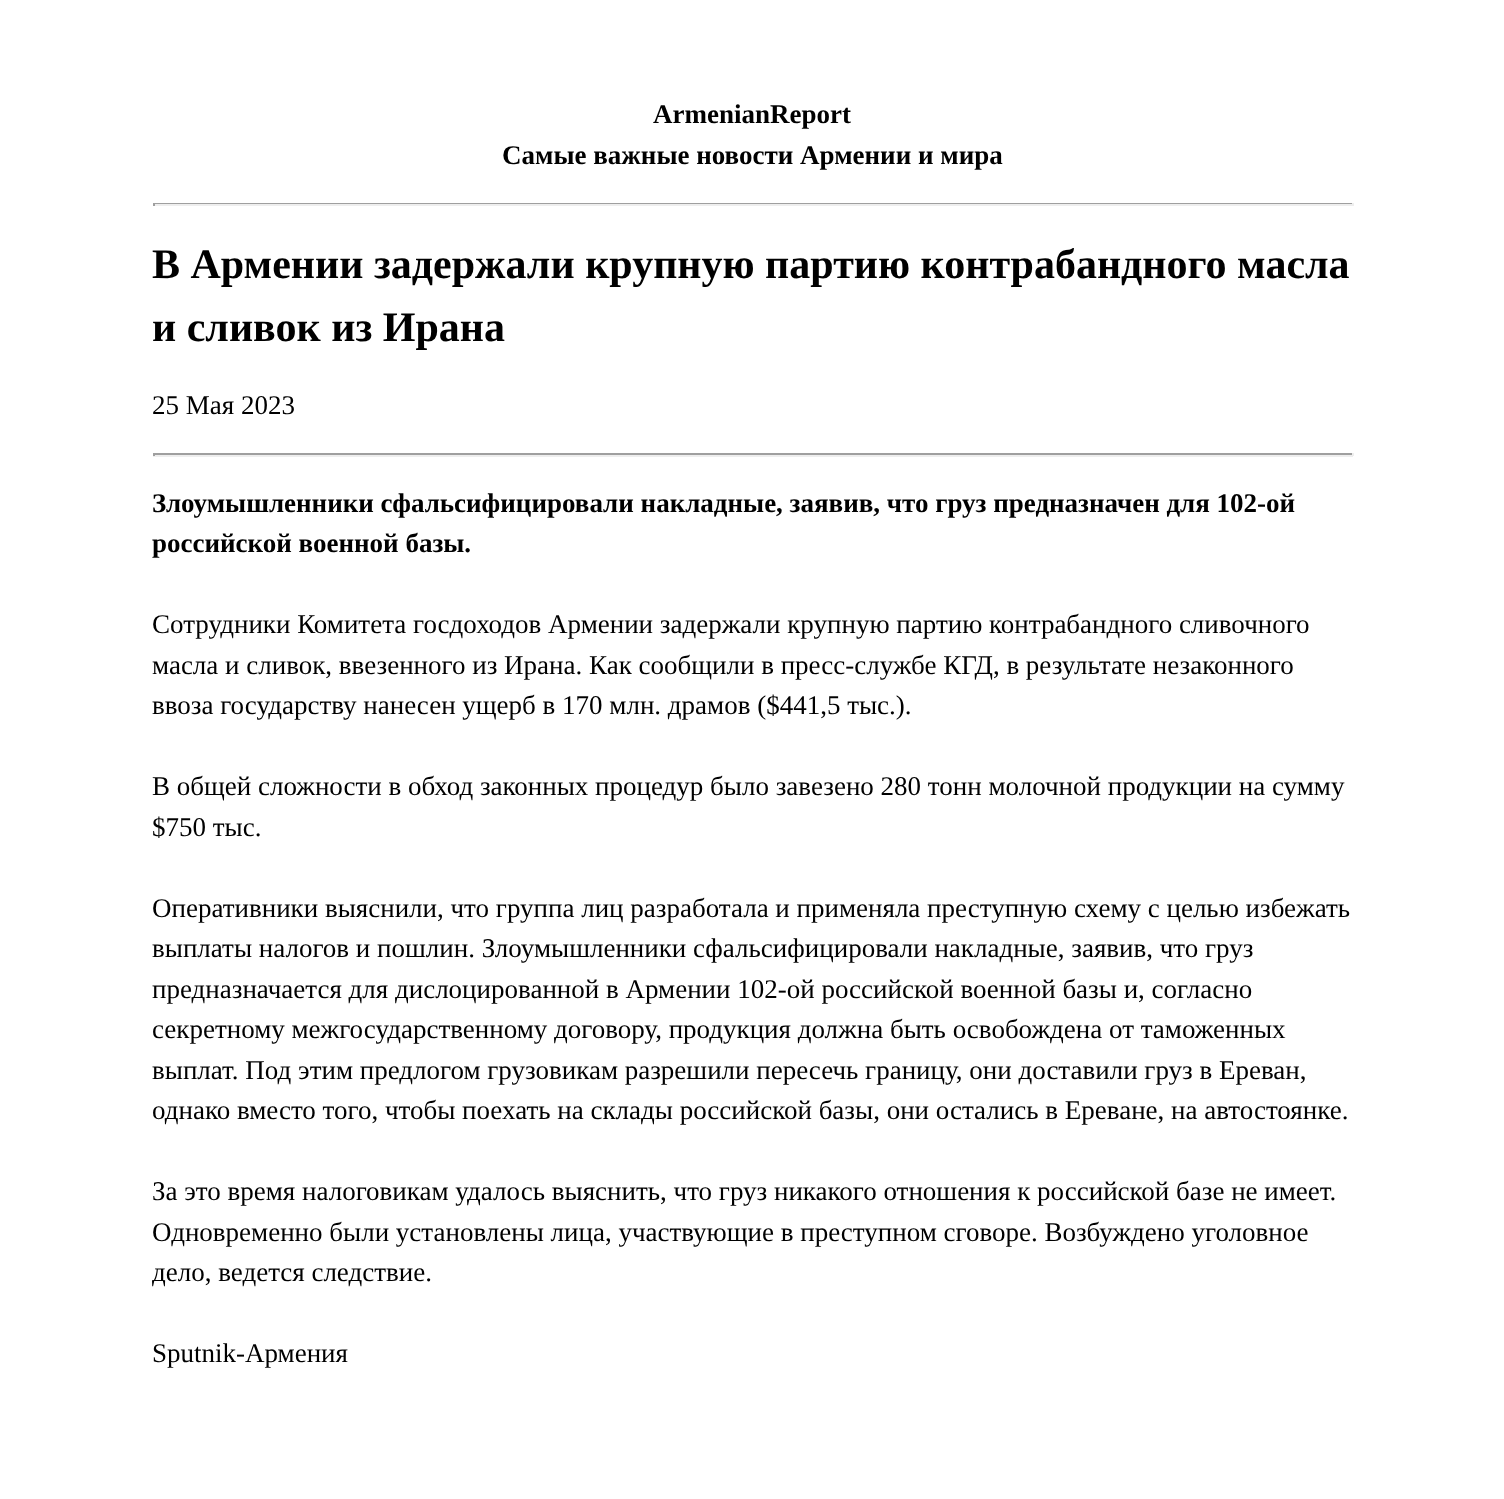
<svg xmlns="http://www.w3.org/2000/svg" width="1504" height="1499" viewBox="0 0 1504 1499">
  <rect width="100%" height="100%" fill="#ffffff"/>
  <text x="653" y="123" font-family="Liberation Serif" font-size="27" font-weight="bold" fill="#000000">ArmenianReport</text>
  <text x="502" y="164" font-family="Liberation Serif" font-size="27" font-weight="bold" fill="#000000">Самые важные новости Армении и мира</text>
  <rect x="153" y="203" width="1200" height="1" fill="#9f9f9f"/>
  <rect x="1352" y="203" width="2" height="3" fill="#eeeeee"/>
  <rect x="153" y="204" width="1200" height="2" fill="#eeeeee"/>
  <rect x="153" y="203" width="2" height="3" fill="#9f9f9f"/>
  <text x="152" y="278" font-family="Liberation Serif" font-size="42" font-weight="bold" fill="#000000">В Армении задержали крупную партию контрабандного масла</text>
  <text x="152" y="341" font-family="Liberation Serif" font-size="42" font-weight="bold" fill="#000000">и сливок из Ирана</text>
  <text x="152" y="414" font-family="Liberation Serif" font-size="27" fill="#000000">25 Мая 2023</text>
  <rect x="153" y="453" width="1200" height="2" fill="#9f9f9f"/>
  <rect x="1352" y="453" width="2" height="3" fill="#eeeeee"/>
  <rect x="153" y="455" width="1200" height="2" fill="#eeeeee"/>
  <rect x="153" y="453" width="2" height="3" fill="#9f9f9f"/>
  <text x="152" y="512" font-family="Liberation Serif" font-size="27" font-weight="bold" fill="#000000">Злоумышленники сфальсифицировали накладные, заявив, что груз предназначен для 102-ой</text>
  <text x="152" y="552" font-family="Liberation Serif" font-size="27" font-weight="bold" fill="#000000">российской военной базы.</text>
  <text x="152" y="633" font-family="Liberation Serif" font-size="27" fill="#000000">Сотрудники Комитета госдоходов Армении задержали крупную партию контрабандного сливочного</text>
  <text x="152" y="674" font-family="Liberation Serif" font-size="27" fill="#000000">масла и сливок, ввезенного из Ирана. Как сообщили в пресс-службе КГД, в результате незаконного</text>
  <text x="152" y="714" font-family="Liberation Serif" font-size="27" fill="#000000">ввоза государству нанесен ущерб в 170 млн. драмов ($441,5 тыс.).</text>
  <text x="152" y="795" font-family="Liberation Serif" font-size="27" fill="#000000">В общей сложности в обход законных процедур было завезено 280 тонн молочной продукции на сумму</text>
  <text x="152" y="836" font-family="Liberation Serif" font-size="27" fill="#000000">$750 тыс.</text>
  <text x="152" y="917" font-family="Liberation Serif" font-size="27" fill="#000000">Оперативники выяснили, что группа лиц разработала и применяла преступную схему с целью избежать</text>
  <text x="152" y="957" font-family="Liberation Serif" font-size="27" fill="#000000">выплаты налогов и пошлин. Злоумышленники сфальсифицировали накладные, заявив, что груз</text>
  <text x="152" y="998" font-family="Liberation Serif" font-size="27" fill="#000000">предназначается для дислоцированной в Армении 102-ой российской военной базы и, согласно</text>
  <text x="152" y="1038" font-family="Liberation Serif" font-size="27" fill="#000000">секретному межгосударственному договору, продукция должна быть освобождена от таможенных</text>
  <text x="152" y="1079" font-family="Liberation Serif" font-size="27" fill="#000000">выплат. Под этим предлогом грузовикам разрешили пересечь границу, они доставили груз в Ереван,</text>
  <text x="152" y="1119" font-family="Liberation Serif" font-size="27" fill="#000000">однако вместо того, чтобы поехать на склады российской базы, они остались в Ереване, на автостоянке.</text>
  <text x="152" y="1200" font-family="Liberation Serif" font-size="27" fill="#000000">За это время налоговикам удалось выяснить, что груз никакого отношения к российской базе не имеет.</text>
  <text x="152" y="1241" font-family="Liberation Serif" font-size="27" fill="#000000">Одновременно были установлены лица, участвующие в преступном сговоре. Возбуждено уголовное</text>
  <text x="152" y="1281" font-family="Liberation Serif" font-size="27" fill="#000000">дело, ведется следствие.</text>
  <text x="152" y="1362" font-family="Liberation Serif" font-size="27" fill="#000000">Sputnik-Армения</text>
</svg>
